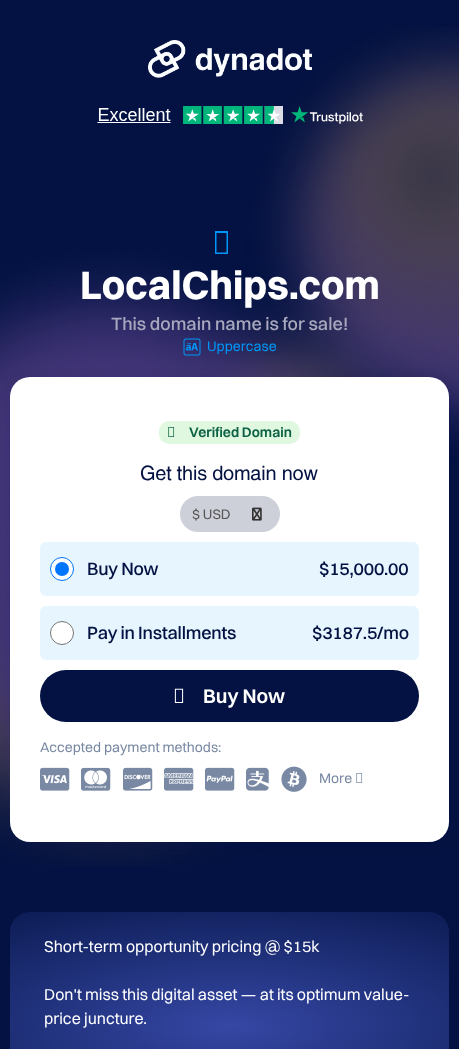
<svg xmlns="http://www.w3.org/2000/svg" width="459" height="1049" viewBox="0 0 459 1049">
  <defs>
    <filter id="blur1" x="-50%" y="-200%" width="200%" height="500%"><feGaussianBlur stdDeviation="7.5"/></filter>
    <radialGradient id="g1" gradientUnits="userSpaceOnUse" cx="0" cy="0" r="1" gradientTransform="matrix(487 0 0 168 230 1026)"><stop offset="0" stop-color="#3547a4"/><stop offset="1" stop-color="#031242"/></radialGradient>
  </defs>
  <rect width="100%" height="100%" fill="#031242"/>
  <image x="0" y="27" width="459" height="839" href="img1.png"/>
  <image x="148" y="40" width="164" height="38" href="img2.png"/>
  <image x="97" y="106" width="266" height="18" href="img3.png"/>
  <path d="M215 254V231H228V254ZM216.5 252.5H226.5V233H216.5Z" fill="#0096f7"/>
  <text x="80" y="299" font-family="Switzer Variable" font-size="40" font-weight="bold" fill="#ffffff">LocalChips.com</text>
  <text x="111" y="330" font-family="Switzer" font-size="18" font-weight="500" fill="#a7a7bd">This domain name is for sale!</text>
  <image x="183" y="338" width="18" height="18" href="img4.png"/>
  <text x="207" y="351" font-family="Switzer Variable" font-size="14" fill="#0096f7">Uppercase</text>
  <rect x="10" y="379" width="439" height="465" rx="20" fill="#031242" fill-opacity="0.15" filter="url(#blur1)"/>
  <rect x="10" y="377" width="439" height="465" rx="20" fill="#ffffff"/>
  <rect x="159" y="421" width="141" height="23" rx="10" fill="#e0f8df"/>
  <image x="168" y="427" width="7" height="10" href="img5.png"/>
  <text x="189" y="437" font-family="Switzer" font-size="14" font-weight="600" fill="#0d6245">Verified Domain</text>
  <text x="140" y="480" font-family="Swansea" font-size="20" letter-spacing="-0.25" fill="#031242">Get this domain now</text>
  <rect x="180" y="496" width="100" height="36" rx="18" fill="#cdd0d9"/>
  <text x="192" y="519" font-family="Switzer Variable" font-size="14" fill="#555555">$ USD</text>
  <image x="252" y="507" width="10" height="14" href="img6.png"/>
  <rect x="40" y="542" width="379" height="54" rx="6" fill="#e6f5fe"/>
  <circle cx="62" cy="569" r="11.5" fill="#ffffff" stroke="#0075ff"/>
  <circle cx="62" cy="569" r="7" fill="#0075ff"/>
  <text x="87" y="575" font-family="Switzer" font-size="18" font-weight="500" letter-spacing="-0.2" fill="#031242">Buy Now</text>
  <text x="319" y="575" font-family="Switzer" font-size="18" font-weight="500" letter-spacing="-0.2" fill="#031242">$15,000.00</text>
  <rect x="40" y="606" width="379" height="54" rx="6" fill="#e6f5fe"/>
  <circle cx="62" cy="633" r="11.5" fill="#ffffff" stroke="#767676"/>
  <text x="87" y="639" font-family="Switzer" font-size="18" font-weight="500" letter-spacing="-0.2" fill="#031242">Pay in Installments</text>
  <text x="312" y="639" font-family="Switzer" font-size="18" font-weight="500" letter-spacing="-0.2" fill="#031242">$3187.5/mo</text>
  <rect x="40" y="670" width="379" height="52" rx="26" fill="#031242"/>
  <image x="174" y="688" width="10" height="15" href="img7.png"/>
  <text x="203" y="703" font-family="Switzer" font-size="20" font-weight="600" fill="#ffffff">Buy Now</text>
  <text x="40" y="752" font-family="Switzer Variable" font-size="14" fill="#7989a3">Accepted payment methods:</text>
  <image x="40" y="767" width="30" height="24" href="img8.png"/>
  <image x="81" y="767" width="30" height="24" href="img9.png"/>
  <image x="123" y="767" width="30" height="24" href="img10.png"/>
  <image x="164" y="767" width="30" height="24" href="img11.png"/>
  <image x="205" y="767" width="30" height="24" href="img12.png"/>
  <image x="246" y="767" width="23" height="24" href="img13.png"/>
  <image x="281" y="766" width="26" height="26" href="img14.png"/>
  <text x="319" y="783" font-family="Switzer Variable" font-size="14" fill="#7989a3">More</text>
  <image x="356" y="773" width="7" height="10" href="img15.png"/>
  <path d="M30 912H429C440 912 449 921 449 932V1049H10V932C10 921 19 912 30 912Z" fill="url(#g1)"/>
  <text x="44" y="952" font-family="Switzer Variable" font-size="16" fill="#ffffff">Short-term opportunity pricing @ $15k</text>
  <text x="44" y="1000" font-family="Switzer Variable" font-size="16" fill="#ffffff">Don't miss this digital asset — at its optimum value-</text>
  <text x="44" y="1024" font-family="Switzer Variable" font-size="16" fill="#ffffff">price juncture.</text>
</svg>
